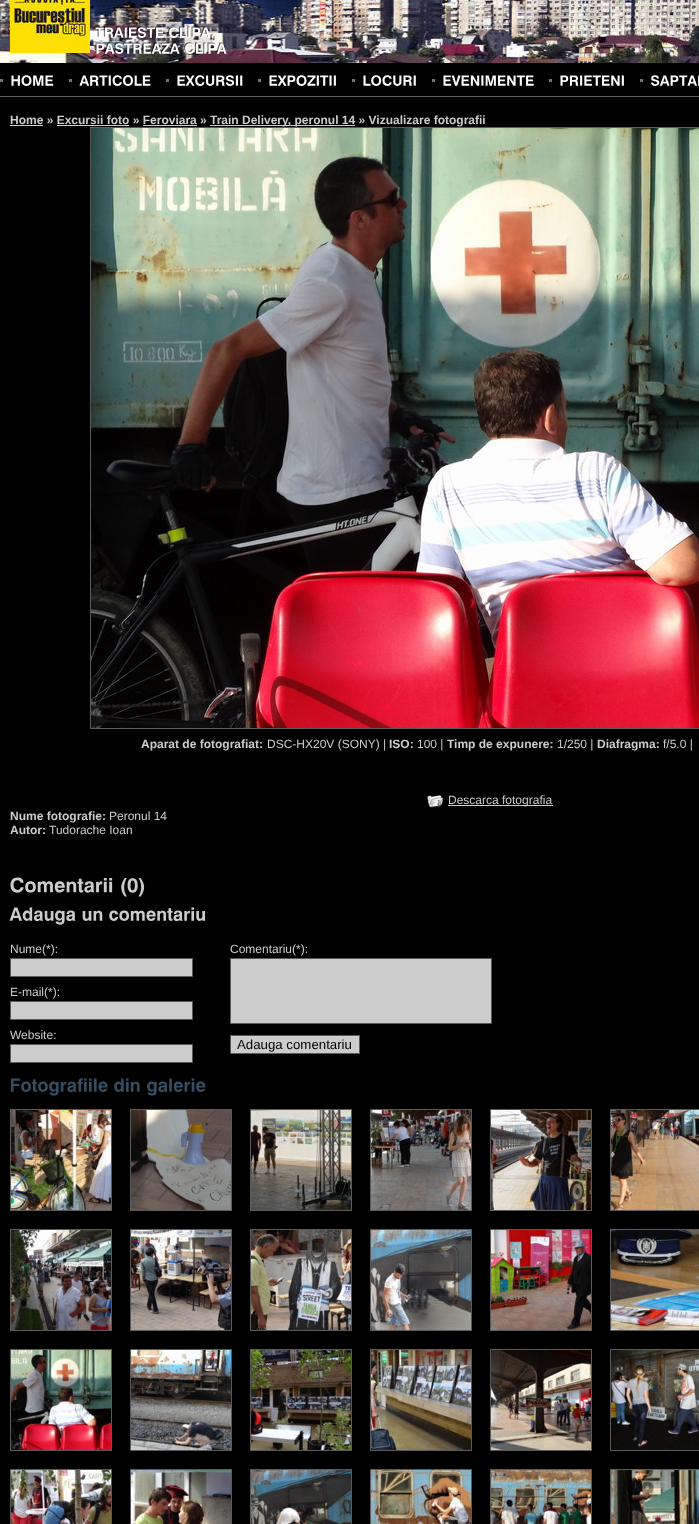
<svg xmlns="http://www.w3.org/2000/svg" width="699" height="1524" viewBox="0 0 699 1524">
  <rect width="100%" height="100%" fill="#000000"/>
  <image x="0" y="0" width="699" height="63" href="img1.png"/>
  <image x="10" y="0" width="80" height="53" href="img2.png"/>
  <image x="94" y="26" width="70" height="12" href="img3.png"/>
  <image x="168" y="26" width="46" height="14" href="img4.png"/>
  <image x="95" y="42" width="85" height="12" href="img5.png"/>
  <image x="184" y="42" width="43" height="12" href="img6.png"/>
  <rect x="0" y="96" width="699" height="1" fill="#5a5a5a"/>
  <rect x="0" y="79" width="3" height="3" fill="#737373"/>
  <image x="11" y="75" width="43" height="11" href="img7.png"/>
  <rect x="69" y="79" width="3" height="3" fill="#737373"/>
  <image x="79" y="75" width="72" height="11" href="img8.png"/>
  <rect x="166" y="79" width="3" height="3" fill="#737373"/>
  <image x="177" y="75" width="66" height="11" href="img9.png"/>
  <rect x="258" y="79" width="3" height="3" fill="#737373"/>
  <image x="269" y="75" width="67" height="11" href="img10.png"/>
  <rect x="352" y="79" width="3" height="3" fill="#737373"/>
  <image x="363" y="75" width="53" height="11" href="img11.png"/>
  <rect x="432" y="79" width="3" height="3" fill="#737373"/>
  <image x="443" y="75" width="91" height="11" href="img12.png"/>
  <rect x="549" y="79" width="3" height="3" fill="#737373"/>
  <image x="560" y="75" width="64" height="11" href="img13.png"/>
  <rect x="640" y="79" width="3" height="3" fill="#737373"/>
  <image x="651" y="75" width="48" height="11" href="img14.png"/>
  <text x="10" y="124" font-family="Liberation Sans" font-size="12" font-weight="bold" fill="#cccccc">Home » Excursii foto » Feroviara »</text>
  <rect x="10" y="125" width="33" height="1" fill="#cccccc"/>
  <rect x="210" y="125" width="145" height="1" fill="#cccccc"/>
  <text x="210" y="124" font-family="Liberation Sans" font-size="12" font-weight="bold" fill="#cccccc">Train Delivery, peronul 14 » Vizualizare fotografii</text>
  <rect x="57" y="125" width="72" height="1" fill="#cccccc"/>
  <rect x="143" y="125" width="54" height="1" fill="#cccccc"/>
  <rect x="90.5" y="127.5" width="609" height="601" fill="none" stroke="#5a5a5a"/>
  <image x="91" y="128" width="608" height="600" href="img15.png"/>
  <text x="141" y="748" font-family="Liberation Sans" font-size="12" font-weight="bold" fill="#cccccc">Aparat de fotografiat:</text>
  <text x="267" y="748" font-family="Liberation Sans" font-size="12" fill="#cccccc">DSC-HX20V (SONY) |</text>
  <text x="389" y="748" font-family="Liberation Sans" font-size="12" font-weight="bold" fill="#cccccc">ISO:</text>
  <text x="417" y="748" font-family="Liberation Sans" font-size="12" fill="#cccccc">100 |</text>
  <text x="447" y="748" font-family="Liberation Sans" font-size="12" font-weight="bold" fill="#cccccc">Timp de expunere:</text>
  <text x="557" y="748" font-family="Liberation Sans" font-size="12" fill="#cccccc">1/250 |</text>
  <text x="597" y="748" font-family="Liberation Sans" font-size="12" font-weight="bold" fill="#cccccc">Diafragma:</text>
  <text x="663" y="748" font-family="Liberation Sans" font-size="12" fill="#cccccc">f/5.0 |</text>
  <image x="427" y="795" width="16" height="13" href="img16.png"/>
  <rect x="448" y="805" width="105" height="1" fill="#cccccc"/>
  <text x="448" y="804" font-family="Liberation Sans" font-size="12" fill="#cccccc">Descarca fotografia</text>
  <text x="10" y="820" font-family="Liberation Sans" font-size="12" font-weight="bold" fill="#cccccc">Nume fotografie:</text>
  <text x="109" y="820" font-family="Liberation Sans" font-size="12" fill="#cccccc">Peronul 14</text>
  <text x="10" y="834" font-family="Liberation Sans" font-size="12" font-weight="bold" fill="#cccccc">Autor:</text>
  <text x="49" y="834" font-family="Liberation Sans" font-size="12" fill="#cccccc">Tudorache Ioan</text>
  <image x="10" y="877" width="103" height="16" href="img17.png"/>
  <image x="121" y="878" width="24" height="19" href="img18.png"/>
  <image x="9" y="907" width="67" height="18" href="img19.png"/>
  <image x="82" y="910" width="21" height="11" href="img20.png"/>
  <image x="109" y="907" width="96" height="14" href="img21.png"/>
  <text x="10" y="953" font-family="Liberation Sans" font-size="12" fill="#cccccc">Nume(*):</text>
  <rect x="10.5" y="958.5" width="182" height="18" fill="#cccccc" stroke="#5a5a5a"/>
  <text x="10" y="996" font-family="Liberation Sans" font-size="12" fill="#cccccc">E-mail(*):</text>
  <rect x="10.5" y="1001.5" width="182" height="18" fill="#cccccc" stroke="#5a5a5a"/>
  <text x="10" y="1039" font-family="Liberation Sans" font-size="12" fill="#cccccc">Website:</text>
  <rect x="10.5" y="1044.5" width="182" height="18" fill="#cccccc" stroke="#5a5a5a"/>
  <text x="230" y="953" font-family="Liberation Sans" font-size="12" fill="#cccccc">Comentariu(*):</text>
  <rect x="230.5" y="958.5" width="261" height="65" fill="#cccccc" stroke="#5a5a5a"/>
  <rect x="230.5" y="1035.5" width="129" height="18" fill="#cccccc" stroke="#5a5a5a"/>
  <text x="237" y="1049" font-family="Liberation Sans" font-size="13.25" fill="#000000">Adauga comentariu</text>
  <image x="10" y="1078" width="98" height="18" href="img22.png"/>
  <image x="114" y="1078" width="26" height="14" href="img23.png"/>
  <image x="147" y="1078" width="59" height="18" href="img24.png"/>
  <rect x="10.5" y="1109.5" width="101" height="101" fill="none" stroke="#5a5a5a"/>
  <image x="11" y="1110" width="100" height="100" href="img25.png"/>
  <rect x="130.5" y="1109.5" width="101" height="101" fill="none" stroke="#5a5a5a"/>
  <image x="131" y="1110" width="100" height="100" href="img26.png"/>
  <rect x="250.5" y="1109.5" width="101" height="101" fill="none" stroke="#5a5a5a"/>
  <image x="251" y="1110" width="100" height="100" href="img27.png"/>
  <rect x="370.5" y="1109.5" width="101" height="101" fill="none" stroke="#5a5a5a"/>
  <image x="371" y="1110" width="100" height="100" href="img28.png"/>
  <rect x="490.5" y="1109.5" width="101" height="101" fill="none" stroke="#5a5a5a"/>
  <image x="491" y="1110" width="100" height="100" href="img29.png"/>
  <rect x="610.5" y="1109.5" width="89" height="101" fill="none" stroke="#5a5a5a"/>
  <image x="611" y="1110" width="88" height="100" href="img30.png"/>
  <rect x="10.5" y="1229.5" width="101" height="101" fill="none" stroke="#5a5a5a"/>
  <image x="11" y="1230" width="100" height="100" href="img31.png"/>
  <rect x="130.5" y="1229.5" width="101" height="101" fill="none" stroke="#5a5a5a"/>
  <image x="131" y="1230" width="100" height="100" href="img32.png"/>
  <rect x="250.5" y="1229.5" width="101" height="101" fill="none" stroke="#5a5a5a"/>
  <image x="251" y="1230" width="100" height="100" href="img33.png"/>
  <rect x="370.5" y="1229.5" width="101" height="101" fill="none" stroke="#5a5a5a"/>
  <image x="371" y="1230" width="100" height="100" href="img34.png"/>
  <rect x="490.5" y="1229.5" width="101" height="101" fill="none" stroke="#5a5a5a"/>
  <image x="491" y="1230" width="100" height="100" href="img35.png"/>
  <rect x="610.5" y="1229.5" width="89" height="101" fill="none" stroke="#5a5a5a"/>
  <image x="611" y="1230" width="88" height="100" href="img36.png"/>
  <rect x="10.5" y="1349.5" width="101" height="101" fill="none" stroke="#5a5a5a"/>
  <image x="11" y="1350" width="100" height="100" href="img37.png"/>
  <rect x="130.5" y="1349.5" width="101" height="101" fill="none" stroke="#5a5a5a"/>
  <image x="131" y="1350" width="100" height="100" href="img38.png"/>
  <rect x="250.5" y="1349.5" width="101" height="101" fill="none" stroke="#5a5a5a"/>
  <image x="251" y="1350" width="100" height="100" href="img39.png"/>
  <rect x="370.5" y="1349.5" width="101" height="101" fill="none" stroke="#5a5a5a"/>
  <image x="371" y="1350" width="100" height="100" href="img40.png"/>
  <rect x="490.5" y="1349.5" width="101" height="101" fill="none" stroke="#5a5a5a"/>
  <image x="491" y="1350" width="100" height="100" href="img41.png"/>
  <rect x="610.5" y="1349.5" width="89" height="101" fill="none" stroke="#5a5a5a"/>
  <image x="611" y="1350" width="88" height="100" href="img42.png"/>
  <rect x="10.5" y="1469.5" width="101" height="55" fill="none" stroke="#5a5a5a"/>
  <image x="11" y="1470" width="100" height="54" href="img43.png"/>
  <rect x="130.5" y="1469.5" width="101" height="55" fill="none" stroke="#5a5a5a"/>
  <image x="131" y="1470" width="100" height="54" href="img44.png"/>
  <rect x="250.5" y="1469.5" width="101" height="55" fill="none" stroke="#5a5a5a"/>
  <image x="251" y="1470" width="100" height="54" href="img45.png"/>
  <rect x="370.5" y="1469.5" width="101" height="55" fill="none" stroke="#5a5a5a"/>
  <image x="371" y="1470" width="100" height="54" href="img46.png"/>
  <rect x="490.5" y="1469.5" width="101" height="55" fill="none" stroke="#5a5a5a"/>
  <image x="491" y="1470" width="100" height="54" href="img47.png"/>
  <rect x="610.5" y="1469.5" width="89" height="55" fill="none" stroke="#5a5a5a"/>
  <image x="611" y="1470" width="88" height="54" href="img48.png"/>
</svg>
